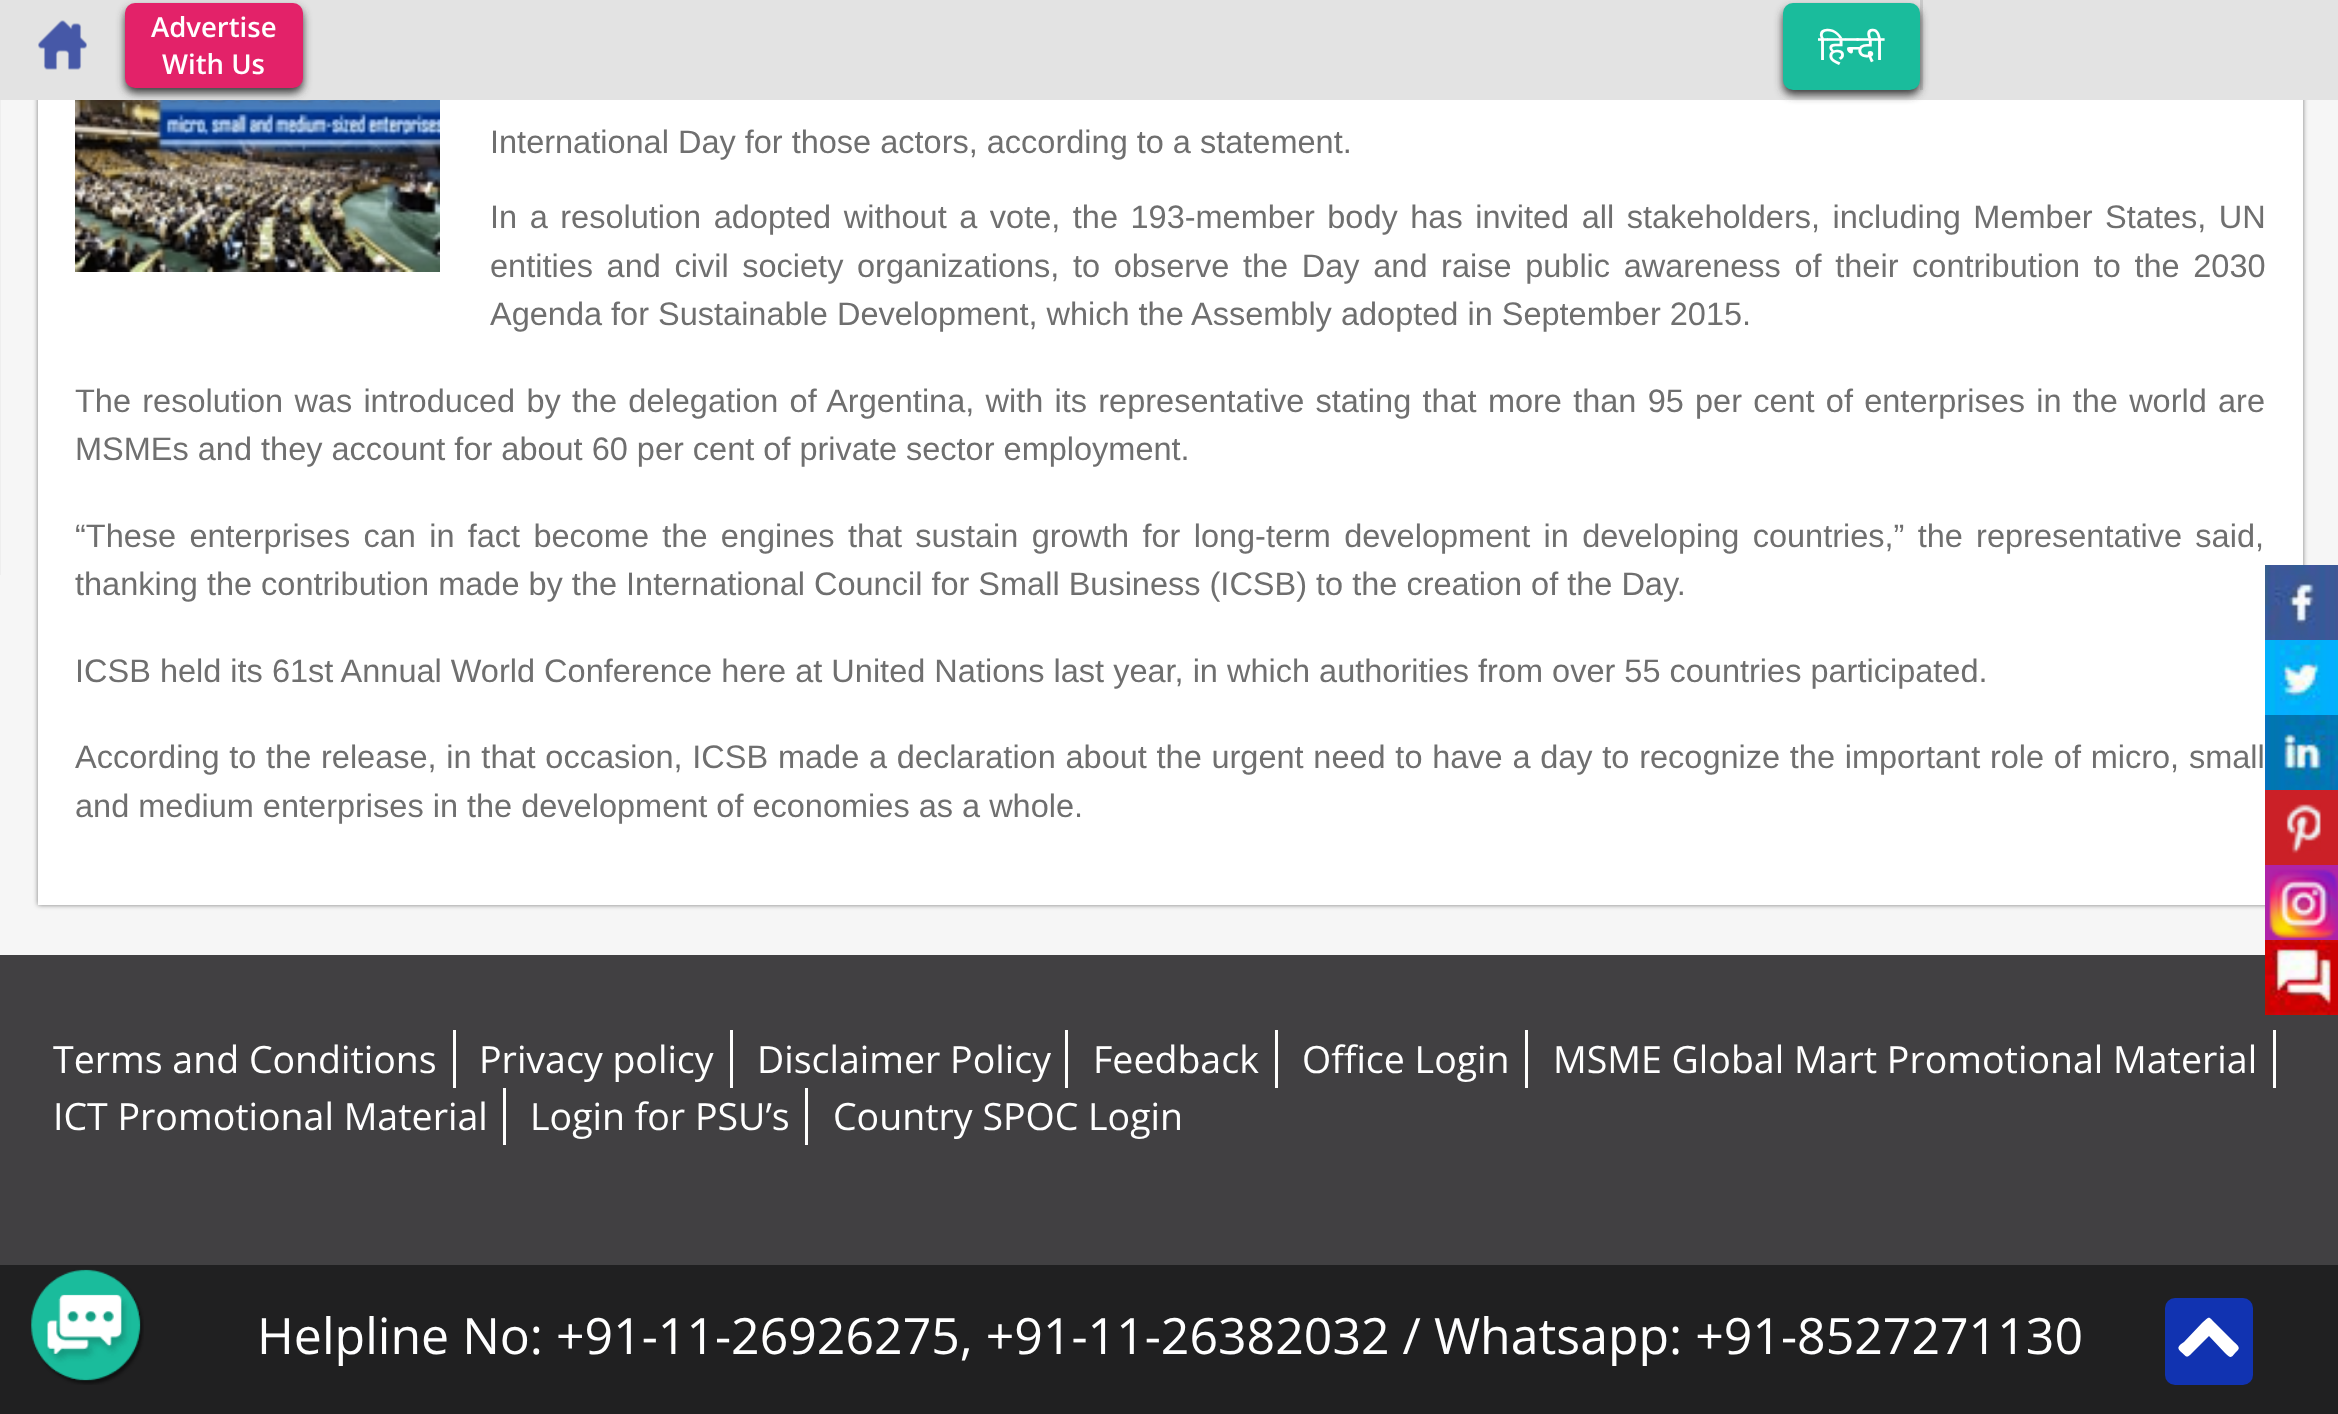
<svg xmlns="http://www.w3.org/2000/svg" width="2338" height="1414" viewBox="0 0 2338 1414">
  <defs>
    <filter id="blur1" x="-50%" y="-200%" width="200%" height="500%"><feGaussianBlur stdDeviation="2.5"/></filter>
    <filter id="blur2" x="-50%" y="-200%" width="200%" height="500%"><feGaussianBlur stdDeviation="4"/></filter>
  </defs>
  <rect width="100%" height="100%" fill="#f6f6f6"/>
  <rect x="38" y="-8" width="2265" height="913" fill="#000000" fill-opacity="0.5" filter="url(#blur1)"/>
  <rect x="0" y="0" width="2338" height="100" fill="#e3e3e3"/>
  <image x="38" y="20" width="49" height="50" href="img1.png"/>
  <rect x="38" y="100" width="2265" height="805" fill="#ffffff"/>
  <image x="75" y="100" width="365" height="172" href="img2.png"/>
  <rect x="125" y="8" width="178" height="85" rx="10" fill="#3e3d3d" filter="url(#blur2)"/>
  <rect x="125" y="3" width="178" height="85" rx="10" fill="#e32269"/>
  <text x="151" y="37" font-family="Open Sans" font-size="27.5" font-weight="600" fill="#ffffff">Advertise</text>
  <text x="162" y="74" font-family="Open Sans" font-size="27.5" font-weight="600" fill="#ffffff">With Us</text>
  <rect x="1920" y="0" width="3" height="90" fill="#cacaca"/>
  <rect x="1783" y="8" width="137" height="87" rx="10" fill="#3e3d3d" filter="url(#blur2)"/>
  <rect x="1784.5" y="4.5" width="134" height="84" rx="8.5" fill="#1abc9c" stroke="#1abc9c" stroke-width="3"/>
  <text x="1818" y="60" font-family="Noto Sans" font-size="35" fill="#ffffff">हिन्दी</text>
  <rect x="0" y="100" width="1" height="475" fill="#eeeeee"/>
  <text x="490" y="153" font-family="Liberation Sans" font-size="32.5" fill="#6f6f6f">International Day for those actors, according to a statement.</text>
  <text x="490" y="228" word-spacing="3.5" font-family="Liberation Sans" font-size="32.5" fill="#6f6f6f">In a resolution adopted without a vote, the 193-member body has invited all stakeholders, including Member States, UN</text>
  <text x="490" y="277" word-spacing="4.6" font-family="Liberation Sans" font-size="32.5" fill="#6f6f6f">entities and civil society organizations, to observe the Day and raise public awareness of their contribution to the 2030</text>
  <text x="490" y="325" font-family="Liberation Sans" font-size="32.5" fill="#6f6f6f">Agenda for Sustainable Development, which the Assembly adopted in September 2015.</text>
  <text x="75" y="412" word-spacing="2.2" font-family="Liberation Sans" font-size="32.5" fill="#6f6f6f">The resolution was introduced by the delegation of Argentina, with its representative stating that more than 95 per cent of enterprises in the world are</text>
  <text x="75" y="460" font-family="Liberation Sans" font-size="32.5" fill="#6f6f6f">MSMEs and they account for about 60 per cent of private sector employment.</text>
  <text x="75" y="547" word-spacing="4.25" font-family="Liberation Sans" font-size="32.5" fill="#6f6f6f">“These enterprises can in fact become the engines that sustain growth for long-term development in developing countries,” the representative said,</text>
  <text x="75" y="595" font-family="Liberation Sans" font-size="32.5" fill="#6f6f6f">thanking the contribution made by the International Council for Small Business (ICSB) to the creation of the Day.</text>
  <text x="75" y="682" font-family="Liberation Sans" font-size="32.5" fill="#6f6f6f">ICSB held its 61st Annual World Conference here at United Nations last year, in which authorities from over 55 countries participated.</text>
  <text x="75" y="768" word-spacing="0.7" font-family="Liberation Sans" font-size="32.5" fill="#6f6f6f">According to the release, in that occasion, ICSB made a declaration about the urgent need to have a day to recognize the important role of micro, small</text>
  <text x="75" y="817" font-family="Liberation Sans" font-size="32.5" fill="#6f6f6f">and medium enterprises in the development of economies as a whole.</text>
  <image x="2265" y="565" width="73" height="75" href="img3.png"/>
  <rect x="2265" y="640" width="5" height="75" fill="#01b1fd"/>
  <image x="2270" y="640" width="68" height="75" href="img4.png"/>
  <image x="2265" y="715" width="73" height="75" href="img5.png"/>
  <rect x="2265" y="790" width="73" height="75" fill="#cb2027"/>
  <image x="2286" y="804" width="35" height="50" href="img6.png"/>
  <rect x="2265" y="865" width="73" height="75" fill="#b023a7"/>
  <image x="2269" y="869" width="69" height="70" href="img7.png"/>
  <rect x="0" y="955" width="2338" height="310" fill="#414042"/>
  <image x="2265" y="940" width="73" height="75" href="img8.png"/>
  <rect x="453" y="1030" width="3" height="58" fill="#ffffff"/>
  <text x="53" y="1073" font-family="Open Sans" font-size="37.5" fill="#ffffff">Terms and Conditions</text>
  <rect x="730" y="1030" width="3" height="58" fill="#ffffff"/>
  <text x="479" y="1073" font-family="Open Sans" font-size="37.5" fill="#ffffff">Privacy policy</text>
  <rect x="1065" y="1030" width="3" height="58" fill="#ffffff"/>
  <text x="757" y="1073" font-family="Open Sans" font-size="37.5" fill="#ffffff">Disclaimer Policy</text>
  <rect x="1275" y="1030" width="3" height="58" fill="#ffffff"/>
  <text x="1093" y="1073" font-family="Open Sans" font-size="37.5" fill="#ffffff">Feedback</text>
  <rect x="1525" y="1030" width="3" height="58" fill="#ffffff"/>
  <text x="1302" y="1073" font-family="Open Sans" font-size="37.5" fill="#ffffff">Office Login</text>
  <rect x="2273" y="1030" width="3" height="58" fill="#ffffff"/>
  <text x="1553" y="1073" font-family="Open Sans" font-size="37.5" fill="#ffffff">MSME Global Mart Promotional Material</text>
  <rect x="503" y="1088" width="3" height="57" fill="#ffffff"/>
  <text x="53" y="1130" font-family="Open Sans" font-size="37.5" fill="#ffffff">ICT Promotional Material</text>
  <rect x="805" y="1088" width="3" height="57" fill="#ffffff"/>
  <text x="530" y="1130" font-family="Open Sans" font-size="37.5" fill="#ffffff">Login for PSU’s</text>
  <text x="833" y="1130" font-family="Open Sans" font-size="37.5" fill="#ffffff">Country SPOC Login</text>
  <rect x="0" y="1265" width="2338" height="149" fill="#202021"/>
  <text x="257" y="1354" font-family="Open Sans" font-size="50" fill="#ffffff">Helpline No: +91-11-26926275, +91-11-26382032 / Whatsapp: +91-8527271130</text>
  <image x="31" y="1269" width="113" height="116" href="img9.png"/>
  <rect x="2165" y="1298" width="88" height="87" rx="10" fill="#1133b1"/>
  <path d="M2238 1350C2231 1357 2232 1360 2225 1353L2209 1336L2192 1353C2186 1359 2187 1357 2180 1351C2176 1347 2180 1345 2184 1342L2202 1323C2210 1316 2208 1316 2215 1323L2234 1342C2235 1343 2241 1347 2238 1350Z" fill="#ffffff"/>
</svg>
